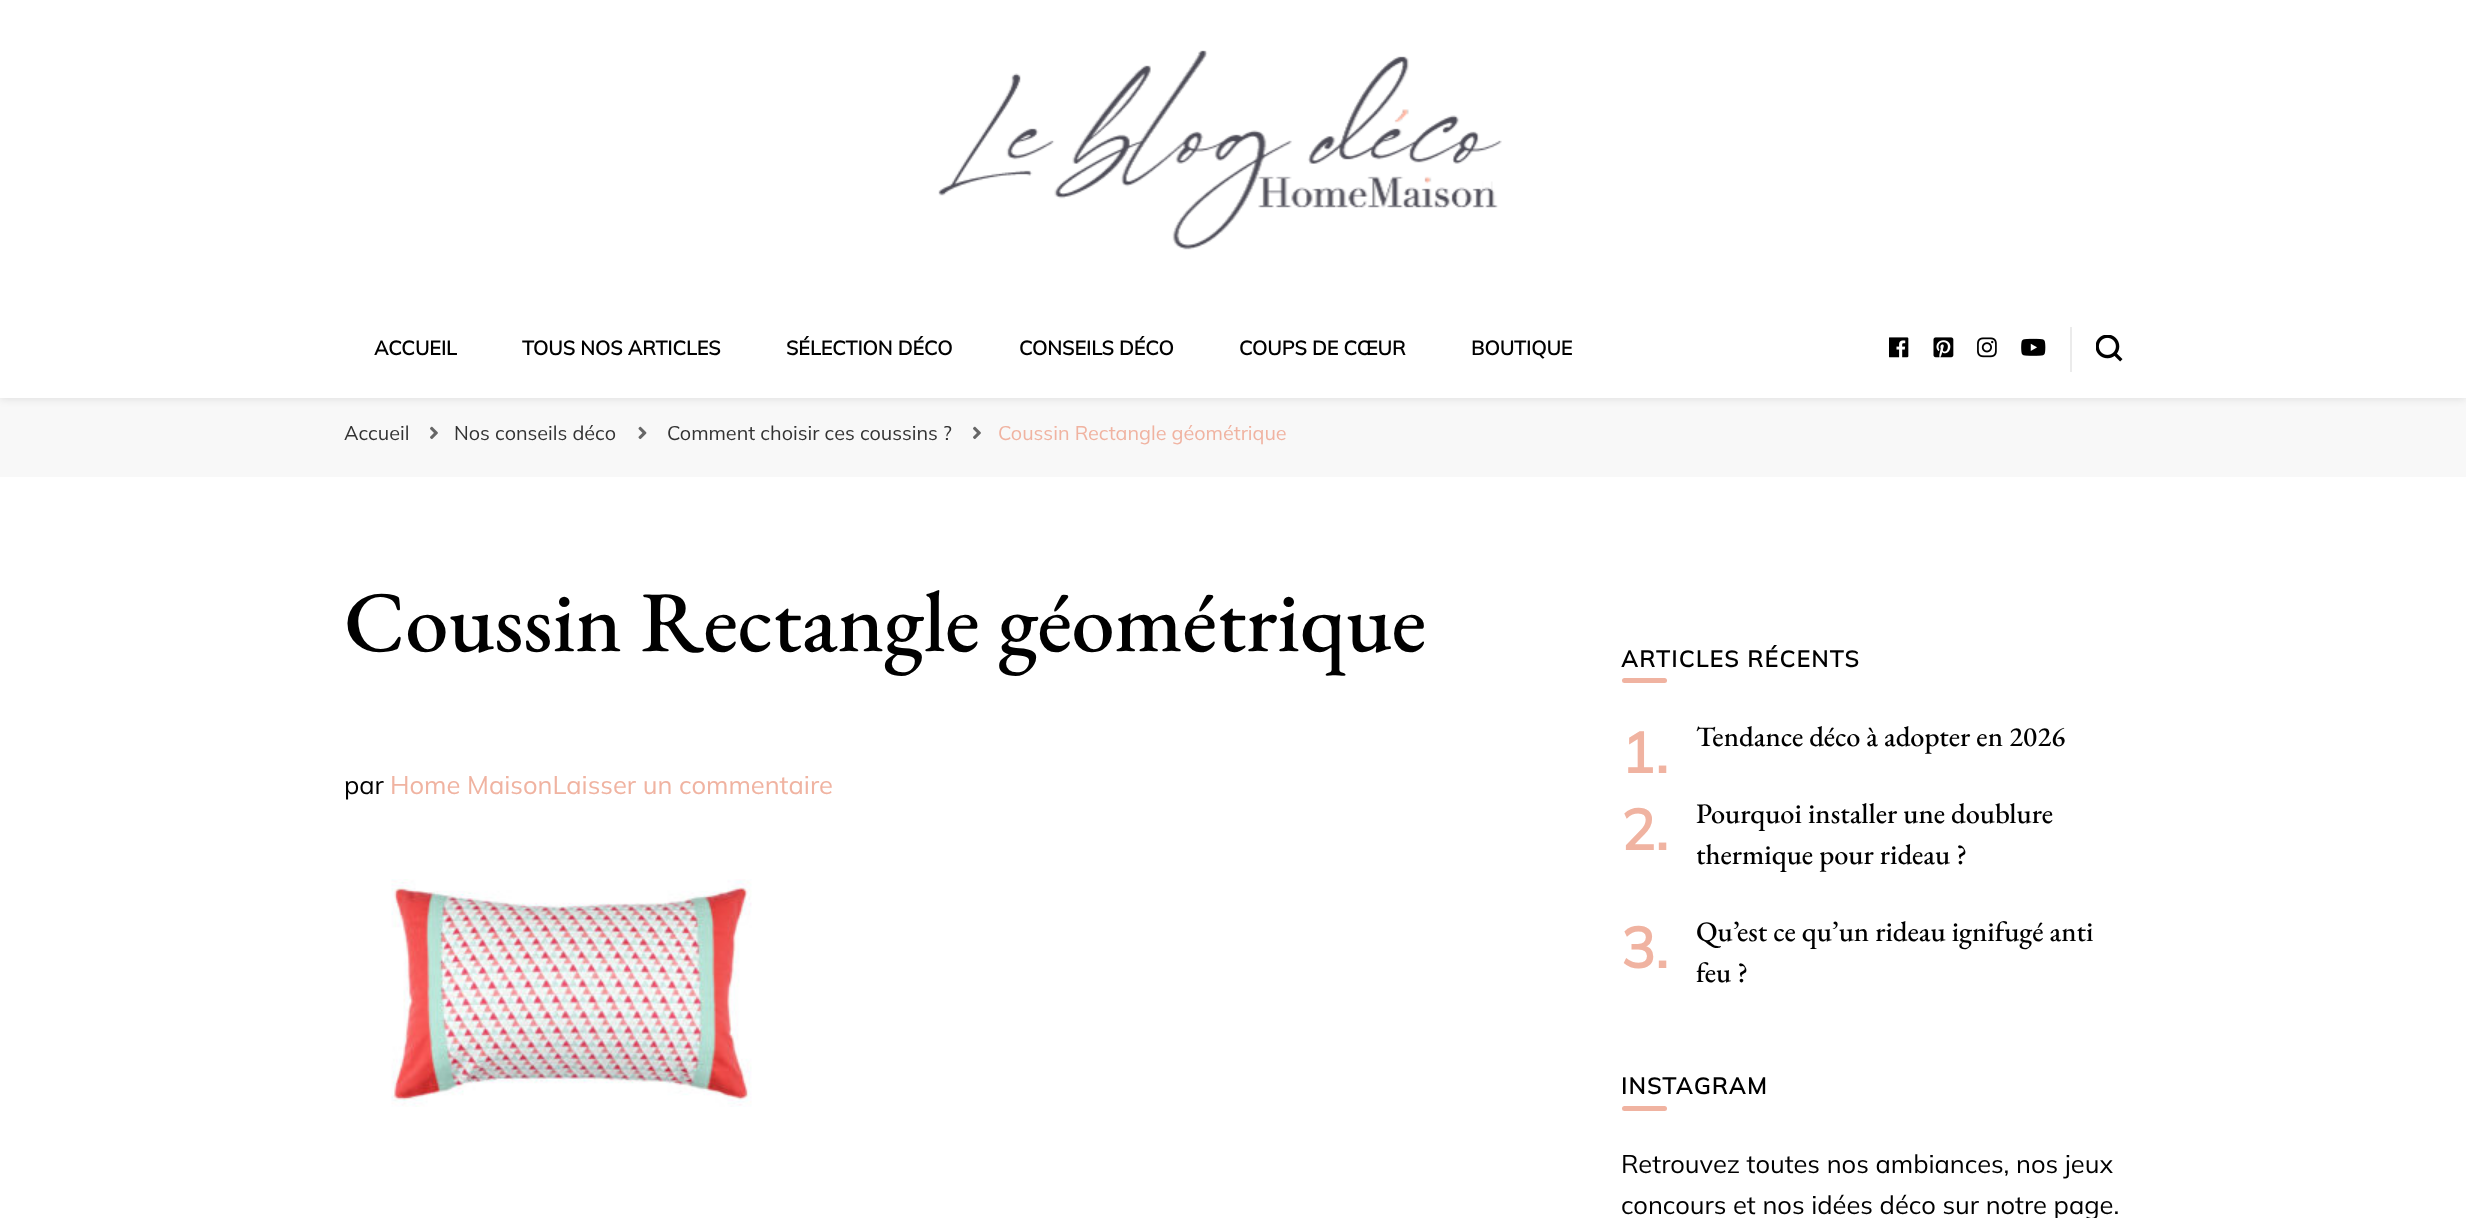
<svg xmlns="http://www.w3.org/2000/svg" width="2466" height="1218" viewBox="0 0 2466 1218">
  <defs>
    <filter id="blur1" x="-50%" y="-200%" width="200%" height="500%"><feGaussianBlur stdDeviation="4"/></filter>
  </defs>
  <rect width="100%" height="100%" fill="#f8f8f8"/>
  <rect x="0" y="2" width="2466" height="397" fill="#000000" fill-opacity="0.1" filter="url(#blur1)"/>
  <rect x="0" y="0" width="2466" height="398" fill="#ffffff"/>
  <image x="938" y="50" width="564" height="200" href="img1.png"/>
  <text x="374" y="355" font-family="Mulish" font-size="19.75" font-weight="bold" fill="#000000">ACCUEIL</text>
  <text x="522" y="355" font-family="Mulish" font-size="19.75" font-weight="bold" fill="#000000">TOUS NOS ARTICLES</text>
  <text x="786" y="355" font-family="Mulish" font-size="19.75" font-weight="bold" fill="#000000">SÉLECTION DÉCO</text>
  <text x="1019" y="355" font-family="Mulish" font-size="19.75" font-weight="bold" fill="#000000">CONSEILS DÉCO</text>
  <text x="1239" y="355" font-family="Mulish" font-size="19.75" font-weight="bold" fill="#000000">COUPS DE CŒUR</text>
  <text x="1471" y="355" font-family="Mulish" font-size="19.75" font-weight="bold" fill="#000000">BOUTIQUE</text>
  <image x="1889" y="337" width="20" height="21" href="img2.png"/>
  <image x="1933" y="337" width="21" height="21" href="img3.png"/>
  <image x="1977" y="337" width="20" height="21" href="img4.png"/>
  <image x="2021" y="338" width="25" height="18" href="img5.png"/>
  <rect x="2070" y="327" width="2" height="45" fill="#ebebeb"/>
  <image x="2096" y="335" width="27" height="27" href="img6.png"/>
  <text x="344" y="440" font-family="Mulish" font-size="19.8" font-weight="200" fill="#333333">Accueil</text>
  <image x="430" y="426" width="8" height="14" href="img7.png"/>
  <text x="454" y="440" font-family="Mulish" font-size="19.8" font-weight="200" fill="#333333">Nos conseils déco</text>
  <image x="638" y="426" width="9" height="14" href="img8.png"/>
  <text x="667" y="440" font-family="Mulish" font-size="19.8" font-weight="200" fill="#333333">Comment choisir ces coussins ?</text>
  <image x="973" y="426" width="8" height="14" href="img7.png"/>
  <text x="998" y="440" font-family="Mulish" font-size="19.8" font-weight="200" fill="#f0b3a1">Coussin Rectangle géométrique</text>
  <rect x="0" y="477" width="2466" height="741" fill="#ffffff"/>
  <text x="344" y="651" font-family="EB Garamond" font-size="86.4" font-weight="500" fill="#000000">Coussin Rectangle géométrique</text>
  <text x="344" y="794" font-family="Mulish" font-size="25.5" font-weight="200" fill="#000000">par</text>
  <text x="390" y="794" font-family="Mulish" font-size="25.5" font-weight="200" fill="#f0b3a1">Home MaisonLaisser un commentaire</text>
  <image x="391" y="879" width="361" height="228" href="img9.png"/>
  <text x="1621" y="667" font-family="Mulish" font-size="22.75" font-weight="bold" letter-spacing="1.5" fill="#000000">ARTICLES RÉCENTS</text>
  <rect x="1622" y="678" width="45" height="5" rx="2.5" fill="#f0b3a1"/>
  <text x="1621" y="773" font-family="Mulish" font-size="57" font-weight="bold" fill="#f0b3a1">1.</text>
  <text x="1696" y="746" font-family="EB Garamond" font-size="28.3" font-weight="500" fill="#000000">Tendance déco à adopter en 2026</text>
  <text x="1621" y="850" font-family="Mulish" font-size="57" font-weight="bold" fill="#f0b3a1">2.</text>
  <text x="1696" y="823" font-family="EB Garamond" font-size="28.3" font-weight="500" fill="#000000">Pourquoi installer une doublure</text>
  <text x="1696" y="864" font-family="EB Garamond" font-size="28.3" font-weight="500" fill="#000000">thermique pour rideau ?</text>
  <text x="1621" y="968" font-family="Mulish" font-size="57" font-weight="bold" fill="#f0b3a1">3.</text>
  <text x="1696" y="941" font-family="EB Garamond" font-size="28.3" font-weight="500" fill="#000000">Qu’est ce qu’un rideau ignifugé anti</text>
  <text x="1696" y="982" font-family="EB Garamond" font-size="28.3" font-weight="500" fill="#000000">feu ?</text>
  <text x="1621" y="1094" font-family="Mulish" font-size="22.75" font-weight="bold" letter-spacing="1.5" fill="#000000">INSTAGRAM</text>
  <rect x="1622" y="1106" width="45" height="5" rx="2.5" fill="#f0b3a1"/>
  <text x="1621" y="1173" font-family="Mulish" font-size="25.5" font-weight="200" fill="#000000">Retrouvez toutes nos ambiances, nos jeux</text>
  <text x="1621" y="1214" font-family="Mulish" font-size="25.5" font-weight="200" fill="#000000">concours et nos idées déco sur notre page.</text>
</svg>
